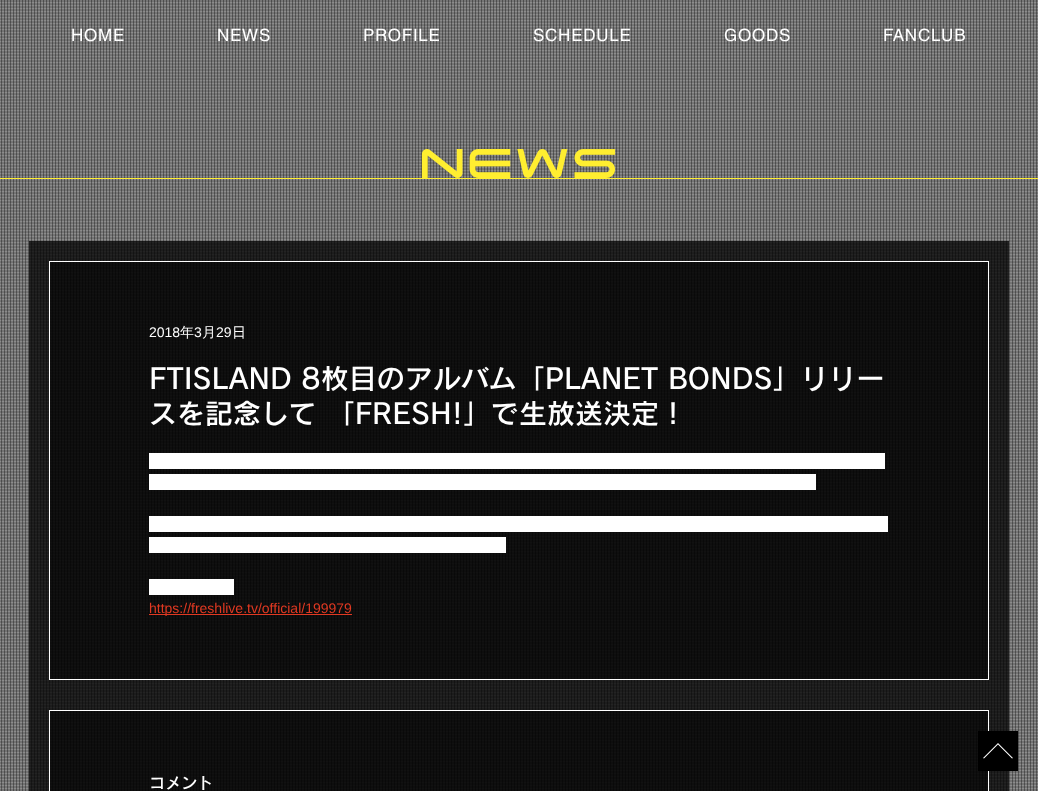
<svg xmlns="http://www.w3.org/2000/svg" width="1038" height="791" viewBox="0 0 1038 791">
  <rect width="100%" height="100%" fill="#8d8d8d"/>
  <image x="0" y="0" width="1038" height="791" href="img1.png"/>
  <text x="71" y="41" font-family="helvetica" font-size="17" letter-spacing="0.75" fill="#ffffff">HOME</text>
  <text x="217" y="41" font-family="helvetica" font-size="17" letter-spacing="0.75" fill="#ffffff">NEWS</text>
  <text x="363" y="41" font-family="helvetica" font-size="17" letter-spacing="0.75" fill="#ffffff">PROFILE</text>
  <text x="533" y="41" font-family="helvetica" font-size="17" letter-spacing="0.75" fill="#ffffff">SCHEDULE</text>
  <text x="724" y="41" font-family="helvetica" font-size="17" letter-spacing="0.75" fill="#ffffff">GOODS</text>
  <text x="883" y="41" font-family="helvetica" font-size="17" letter-spacing="0.75" fill="#ffffff">FANCLUB</text>
  <image x="421" y="149" width="195" height="29" href="img2.png"/>
  <rect x="0" y="178" width="1038" height="1" fill="#ffee30"/>
  <rect x="29" y="241" width="980" height="550" fill="#000000" fill-opacity="0.75"/>
  <rect x="49.5" y="261.5" width="939" height="418" fill="#000000" fill-opacity="0.5" stroke="#ffffff"/>
  <text x="149" y="337" font-family="Liberation Sans" font-size="14" fill="#ffffff">2018</text>
  <text x="180" y="337" font-family="WenQuanYi Zen Hei" font-size="14" font-weight="500" fill="#ffffff">年</text>
  <text x="194" y="337" font-family="Liberation Sans" font-size="14" fill="#ffffff">3</text>
  <text x="202" y="337" font-family="WenQuanYi Zen Hei" font-size="14" font-weight="500" fill="#ffffff">月</text>
  <text x="216" y="337" font-family="Liberation Sans" font-size="14" fill="#ffffff">29</text>
  <text x="232" y="337" font-family="WenQuanYi Zen Hei" font-size="14" font-weight="500" fill="#ffffff">日</text>
  <text x="149" y="389" font-family="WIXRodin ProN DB" font-size="28" font-weight="600" fill="#ffffff">FTISLAND 8枚目のアルバム「PLANET BONDS」リリー</text>
  <text x="149" y="424" font-family="WIXRodin ProN DB" font-size="28" font-weight="600" fill="#ffffff">スを記念して 「FRESH!」で生放送決定！</text>
  <rect x="149" y="453" width="736" height="16" fill="#ffffff"/>
  <rect x="149" y="474" width="667" height="16" fill="#ffffff"/>
  <rect x="149" y="516" width="739" height="16" fill="#ffffff"/>
  <rect x="149" y="537" width="357" height="16" fill="#ffffff"/>
  <rect x="149" y="579" width="85" height="16" fill="#ffffff"/>
  <rect x="149" y="614" width="203" height="1" fill="#e13922"/>
  <text x="149" y="613" font-family="Liberation Sans" font-size="14" fill="#e13922">https://freshlive.tv/official/199979</text>
  <rect x="49.5" y="710.5" width="939" height="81" fill="#000000" fill-opacity="0.5" stroke="#ffffff"/>
  <text x="149" y="789" font-family="WIXRodin ProN DB" font-size="16" font-weight="600" fill="#ffffff">コメント</text>
  <rect x="978" y="731" width="40" height="40" fill="#000000"/>
  <path d="M1012 758.5L998 744.5L984 758.5L983 758L998 743L1013 758Z" fill="#ffffff"/>
</svg>
